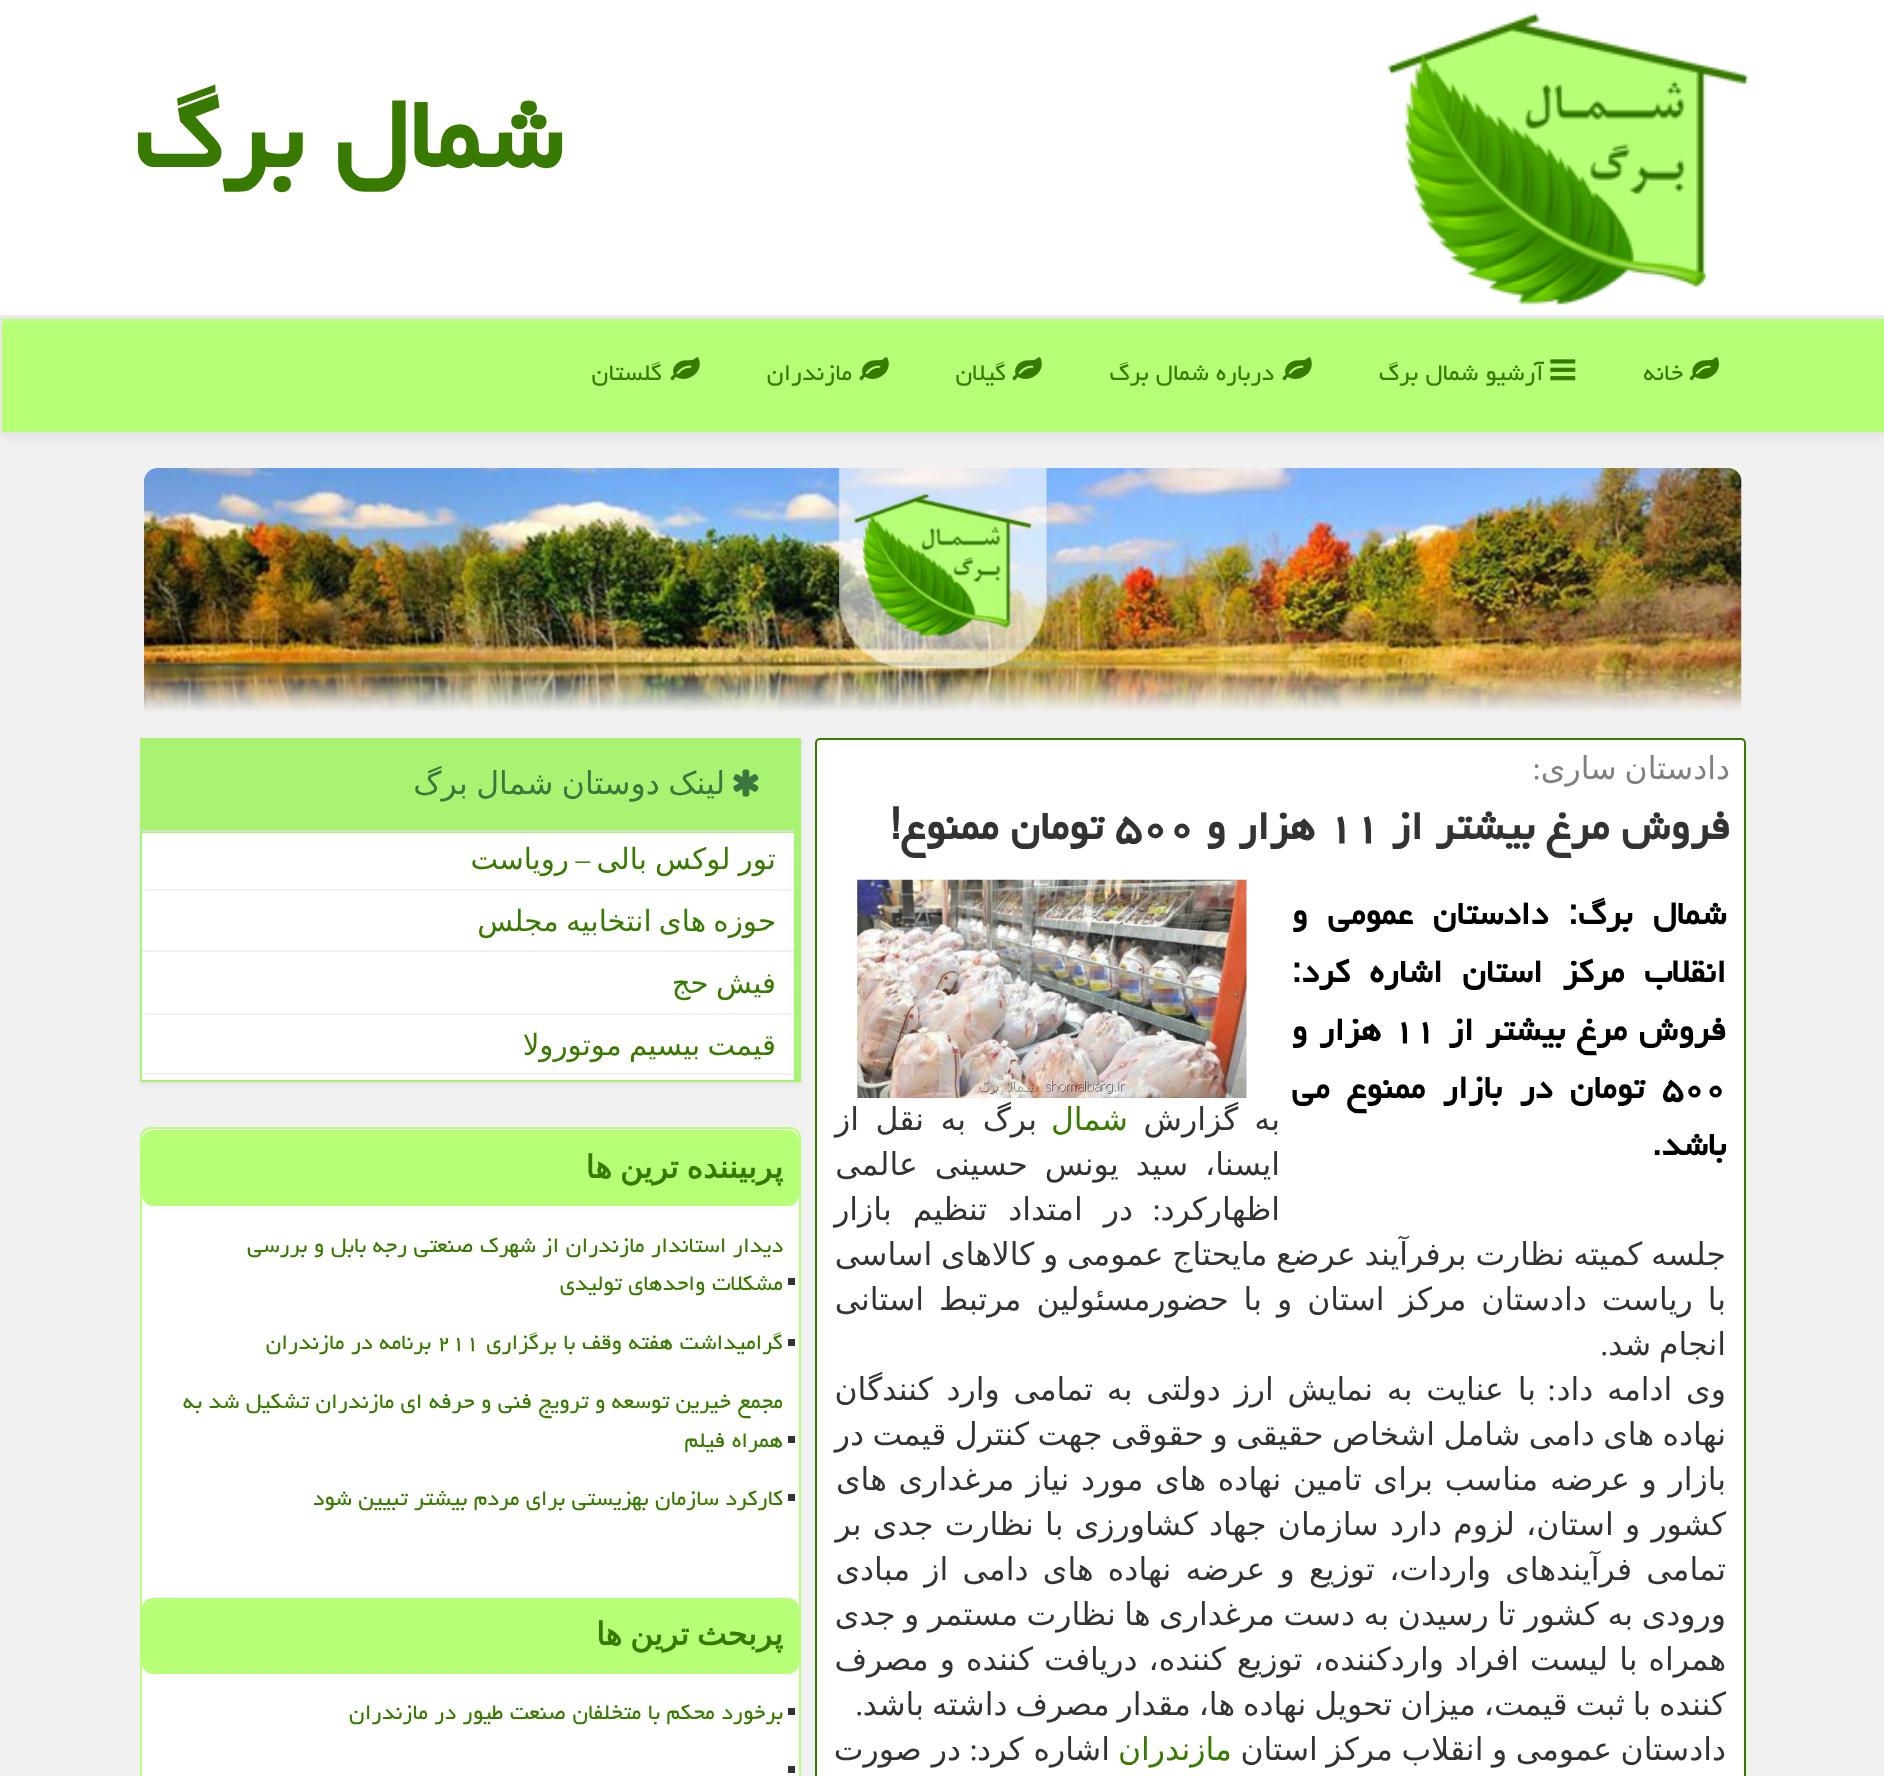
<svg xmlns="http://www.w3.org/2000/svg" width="1884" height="1776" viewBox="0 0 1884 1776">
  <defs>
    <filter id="blur1" x="-50%" y="-200%" width="200%" height="500%"><feGaussianBlur stdDeviation="5.5"/></filter>
    <filter id="blur2" x="-50%" y="-200%" width="200%" height="500%"><feGaussianBlur stdDeviation="2"/></filter>
  </defs>
  <rect width="100%" height="100%" fill="#f1f1f1"/>
  <rect x="0" y="0" width="1884" height="315" fill="#ffffff"/>
  <rect x="0" y="315" width="1884" height="2" fill="#eeeeee"/>
  <image x="1387" y="13" width="362" height="293" href="img1.png"/>
  <text x="562" y="167" font-family="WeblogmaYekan" font-size="126" font-weight="bold" direction="rtl" fill="#387a00">شمال برگ</text>
  <rect x="0" y="320" width="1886" height="117" fill="#000000" fill-opacity="0.07" filter="url(#blur1)"/>
  <rect x="2" y="319" width="1882" height="113" fill="#b6ff77"/>
  <rect x="2" y="320" width="1881" height="2" fill="#c1ff8b"/>
  <rect x="1" y="318" width="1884" height="115" fill="none" stroke="#e7e7e7" stroke-width="2"/>
  <image x="1689" y="357" width="30" height="24" href="img2.png"/>
  <text x="1683" y="380" font-family="WeblogmaYekan" font-size="29.25" direction="rtl" fill="#387a00">خانه</text>
  <image x="1550" y="359" width="26" height="22" href="img3.png"/>
  <text x="1544" y="380" font-family="WeblogmaYekan" font-size="29.25" direction="rtl" fill="#387a00">آرشیو شمال برگ</text>
  <image x="1282" y="357" width="30" height="24" href="img4.png"/>
  <text x="1274" y="380" font-family="WeblogmaYekan" font-size="29.25" direction="rtl" fill="#387a00">درباره شمال برگ</text>
  <image x="1012" y="357" width="30" height="24" href="img4.png"/>
  <text x="1006" y="380" font-family="WeblogmaYekan" font-size="29.25" direction="rtl" fill="#387a00">گیلان</text>
  <image x="859" y="357" width="30" height="24" href="img4.png"/>
  <text x="852" y="380" font-family="WeblogmaYekan" font-size="29.25" direction="rtl" fill="#387a00">مازندران</text>
  <image x="670" y="357" width="30" height="24" href="img4.png"/>
  <text x="662" y="380" font-family="WeblogmaYekan" font-size="29.25" direction="rtl" fill="#387a00">گلستان</text>
  <image x="144" y="468" width="1598" height="246" href="img5.png"/>
  <rect x="816" y="739" width="929" height="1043" rx="4" fill="#ffffff" stroke="#387a00" stroke-width="2"/>
  <text x="1730" y="779" word-spacing="-2.1" font-family="DejaVu Sans" font-size="31.5" direction="rtl" fill="#808080">دادستان ساری</text>
  <text x="1541" y="779" font-family="Liberation Serif" font-size="31.5" direction="rtl" fill="#808080">:</text>
  <text x="1730" y="839" font-family="WeblogmaYekan" font-size="50.5" font-weight="bold" direction="rtl" fill="#333333">فروش مرغ بیشتر از</text>
  <text x="1327" y="839" font-family="WeblogmaYekan" font-size="50.5" font-weight="bold" fill="#333333">۱۱</text>
  <text x="1315" y="839" font-family="WeblogmaYekan" font-size="50.5" font-weight="bold" direction="rtl" fill="#333333">هزار و</text>
  <text x="1115" y="839" font-family="WeblogmaYekan" font-size="50.5" font-weight="bold" fill="#333333">۵۰۰</text>
  <text x="1103" y="839" font-family="WeblogmaYekan" font-size="50.5" font-weight="bold" direction="rtl" fill="#333333">تومان ممنوع!</text>
  <text x="1726" y="924" word-spacing="10.5" font-family="WeblogmaYekan" font-size="40.5" font-weight="bold" direction="rtl" fill="#000000">شمال برگ: دادستان عمومی و</text>
  <text x="1726" y="982" word-spacing="10" font-family="WeblogmaYekan" font-size="40.5" font-weight="bold" direction="rtl" fill="#000000">انقلاب مركز استان اشاره كرد:</text>
  <text x="1726" y="1040" word-spacing="2" font-family="WeblogmaYekan" font-size="40.5" font-weight="bold" direction="rtl" fill="#000000">فروش مرغ بیشتر از</text>
  <text x="1393" y="1040" font-family="WeblogmaYekan" font-size="40.5" font-weight="bold" fill="#000000">۱۱</text>
  <text x="1381" y="1040" word-spacing="2" font-family="WeblogmaYekan" font-size="40.5" font-weight="bold" direction="rtl" fill="#000000">هزار و</text>
  <text x="1662" y="1098" font-family="WeblogmaYekan" font-size="40.5" font-weight="bold" fill="#000000">۵۰۰</text>
  <text x="1644" y="1098" word-spacing="8" font-family="WeblogmaYekan" font-size="40.5" font-weight="bold" direction="rtl" fill="#000000">تومان در بازار ممنوع می</text>
  <text x="1726" y="1155" font-family="WeblogmaYekan" font-size="40.5" font-weight="bold" direction="rtl" fill="#000000">باشد.</text>
  <image x="857" y="879" width="390" height="219" href="img6.png"/>
  <text x="1280" y="1130" word-spacing="6" font-family="DejaVu Sans" font-size="31.5" direction="rtl" fill="#333333">به گزارش</text>
  <text x="1128" y="1130" font-family="DejaVu Sans" font-size="31.5" direction="rtl" fill="#387a00">شمال</text>
  <text x="1037" y="1130" word-spacing="6.5" font-family="DejaVu Sans" font-size="31.5" direction="rtl" fill="#333333">برگ به نقل از</text>
  <text x="1280" y="1175" word-spacing="7" font-family="DejaVu Sans" font-size="31.5" direction="rtl" fill="#333333">ایسنا، سید یونس حسینی عالمی</text>
  <text x="1280" y="1220" font-family="DejaVu Sans" font-size="31.5" direction="rtl" fill="#333333">اظهاركرد</text>
  <text x="1161" y="1220" font-family="Liberation Serif" font-size="31.5" direction="rtl" fill="#333333">:</text>
  <text x="1133" y="1220" word-spacing="11" font-family="DejaVu Sans" font-size="31.5" direction="rtl" fill="#333333">در امتداد تنظیم بازار</text>
  <text x="1726" y="1265" word-spacing="-1.25" font-family="DejaVu Sans" font-size="31.5" direction="rtl" fill="#333333">جلسه كمیته نظارت برفرآیند عرضع مایحتاج عمومی و كالاهای اساسی</text>
  <text x="1726" y="1310" word-spacing="5" font-family="DejaVu Sans" font-size="31.5" direction="rtl" fill="#333333">با ریاست دادستان مركز استان و با حضورمسئولین مرتبط استانی</text>
  <text x="1726" y="1355" word-spacing="-2.1" font-family="DejaVu Sans" font-size="31.5" direction="rtl" fill="#333333">انجام شد</text>
  <text x="1608" y="1355" font-family="Liberation Serif" font-size="31.5" direction="rtl" fill="#333333">.</text>
  <text x="1726" y="1400" word-spacing="3.75" font-family="DejaVu Sans" font-size="31.5" direction="rtl" fill="#333333">وی ادامه داد</text>
  <text x="1556" y="1400" font-family="Liberation Serif" font-size="31.5" direction="rtl" fill="#333333">:</text>
  <text x="1536" y="1400" word-spacing="3.75" font-family="DejaVu Sans" font-size="31.5" direction="rtl" fill="#333333">با عنایت به نمایش ارز دولتی به تمامی وارد كنندگان</text>
  <text x="1726" y="1445" word-spacing="-1.5" font-family="DejaVu Sans" font-size="31.5" direction="rtl" fill="#333333">نهاده های دامی شامل اشخاص حقیقی و حقوقی جهت كنترل قیمت در</text>
  <text x="1726" y="1490" word-spacing="1.75" font-family="DejaVu Sans" font-size="31.5" direction="rtl" fill="#333333">بازار و عرضه مناسب برای تامین نهاده های مورد نیاز مرغداری های</text>
  <text x="1726" y="1535" word-spacing="1.25" font-family="DejaVu Sans" font-size="31.5" direction="rtl" fill="#333333">كشور و استان، لزوم دارد سازمان جهاد كشاورزی با نظارت جدی بر</text>
  <text x="1726" y="1580" word-spacing="4.25" font-family="DejaVu Sans" font-size="31.5" direction="rtl" fill="#333333">تمامی فرآیندهای واردات، توزیع و عرضه نهاده های دامی از مبادی</text>
  <text x="1726" y="1625" word-spacing="-1.4" font-family="DejaVu Sans" font-size="31.5" direction="rtl" fill="#333333">ورودی به كشور تا رسیدن به دست مرغداری ها نظارت مستمر و جدی</text>
  <text x="1726" y="1670" word-spacing="1" font-family="DejaVu Sans" font-size="31.5" direction="rtl" fill="#333333">همراه با لیست افراد واردكننده، توزیع كننده، دریافت كننده و مصرف</text>
  <text x="1726" y="1715" word-spacing="-2.1" font-family="DejaVu Sans" font-size="31.5" direction="rtl" fill="#333333">كننده با ثبت قیمت، میزان تحویل نهاده ها، مقدار مصرف داشته باشد</text>
  <text x="863" y="1715" font-family="Liberation Serif" font-size="31.5" direction="rtl" fill="#333333">.</text>
  <text x="1726" y="1760" word-spacing="-1.5" font-family="DejaVu Sans" font-size="31.5" direction="rtl" fill="#333333">دادستان عمومی و انقلاب مركز استان</text>
  <text x="1232" y="1760" font-family="DejaVu Sans" font-size="31.5" direction="rtl" fill="#387a00">مازندران</text>
  <text x="1110" y="1760" font-family="DejaVu Sans" font-size="31.5" direction="rtl" fill="#333333">اشاره كرد</text>
  <text x="978" y="1760" font-family="Liberation Serif" font-size="31.5" direction="rtl" fill="#333333">:</text>
  <text x="961" y="1760" font-family="DejaVu Sans" font-size="31.5" direction="rtl" fill="#333333">در صورت</text>
  <rect x="140" y="740" width="661" height="345" fill="#000000" fill-opacity="0.05" filter="url(#blur2)"/>
  <rect x="142" y="833" width="652" height="247" fill="#ffffff"/>
  <rect x="140" y="738" width="661" height="2" fill="#a9f372"/>
  <rect x="794" y="738" width="7" height="344" fill="#a9f372"/>
  <rect x="140" y="1080" width="661" height="2" fill="#a9f372"/>
  <rect x="140" y="738" width="2" height="344" fill="#a9f372"/>
  <rect x="142" y="740" width="652" height="93" fill="#a9f372"/>
  <rect x="142" y="830" width="652" height="2" fill="#d6e9c6"/>
  <image x="733" y="769" width="26" height="28" href="img7.png"/>
  <text x="725" y="794" word-spacing="-1.5" font-family="DejaVu Sans" font-size="31.5" direction="rtl" fill="#3c763d">لینک دوستان شمال برگ</text>
  <rect x="142" y="889" width="652" height="2" fill="#f1f1f1"/>
  <text x="776" y="869" word-spacing="-1" font-family="DejaVu Sans" font-size="29.25" direction="rtl" fill="#387a00">تور لوکس بالی</text>
  <text x="590" y="869" font-family="Liberation Serif" font-size="29.25" direction="rtl" fill="#387a00">–</text>
  <text x="569" y="869" font-family="DejaVu Sans" font-size="29.25" direction="rtl" fill="#387a00">رویاست</text>
  <rect x="142" y="950" width="652" height="2" fill="#f1f1f1"/>
  <text x="776" y="931" word-spacing="-2" font-family="DejaVu Sans" font-size="29.25" direction="rtl" fill="#387a00">حوزه های انتخابیه مجلس</text>
  <rect x="142" y="1013" width="652" height="2" fill="#f1f1f1"/>
  <text x="776" y="993" word-spacing="-2" font-family="DejaVu Sans" font-size="29.25" direction="rtl" fill="#387a00">فیش حج</text>
  <rect x="142" y="1073" width="652" height="2" fill="#f1f1f1"/>
  <text x="776" y="1055" word-spacing="-2" font-family="DejaVu Sans" font-size="29.25" direction="rtl" fill="#387a00">قیمت بیسیم موتورولا</text>
  <rect x="141" y="1128" width="659" height="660" rx="10" fill="#ffffff" stroke="#b6ff77" stroke-width="2"/>
  <rect x="142" y="1130" width="657" height="76" rx="11" fill="#b6ff77"/>
  <text x="783" y="1178" word-spacing="-2.1" font-family="DejaVu Sans" font-size="31.5" font-weight="bold" direction="rtl" fill="#387a00">پربیننده ترین ها</text>
  <rect x="788" y="1278" width="7" height="7" fill="#333333"/>
  <text x="783" y="1252" font-family="WeblogmaYekan" font-size="27" direction="rtl" fill="#387a00">دیدار استاندار مازندران از شهرک صنعتی رجه بابل و بررسی</text>
  <text x="783" y="1290" font-family="WeblogmaYekan" font-size="27" direction="rtl" fill="#387a00">مشکلات واحدهای تولیدی</text>
  <rect x="788" y="1339" width="7" height="7" fill="#333333"/>
  <text x="783" y="1349" font-family="WeblogmaYekan" font-size="27" direction="rtl" fill="#387a00">گرامیداشت هفته وقف با برگزاری</text>
  <text x="437" y="1349" font-family="WeblogmaYekan" font-size="27" fill="#387a00">۲۱۱</text>
  <text x="431" y="1349" font-family="WeblogmaYekan" font-size="27" direction="rtl" fill="#387a00">برنامه در مازندران</text>
  <rect x="788" y="1436" width="7" height="7" fill="#333333"/>
  <text x="783" y="1408" font-family="WeblogmaYekan" font-size="27" direction="rtl" fill="#387a00">مجمع خیرین توسعه و ترویج فنی و حرفه ای مازندران تشکیل شد به</text>
  <text x="783" y="1447" font-family="WeblogmaYekan" font-size="27" direction="rtl" fill="#387a00">همراه فیلم</text>
  <rect x="788" y="1494" width="7" height="7" fill="#333333"/>
  <text x="783" y="1505" font-family="WeblogmaYekan" font-size="27" direction="rtl" fill="#387a00">کارکرد سازمان بهزیستی برای مردم بیشتر تبیین شود</text>
  <rect x="142" y="1598" width="657" height="76" rx="11" fill="#b6ff77"/>
  <text x="783" y="1645" word-spacing="-2.1" font-family="DejaVu Sans" font-size="31.5" font-weight="bold" direction="rtl" fill="#387a00">پربحث ترین ها</text>
  <rect x="788" y="1708" width="7" height="7" fill="#333333"/>
  <text x="783" y="1719" font-family="WeblogmaYekan" font-size="27" direction="rtl" fill="#387a00">برخورد محکم با متخلفان صنعت طیور در مازندران</text>
  <rect x="788" y="1766" width="7" height="7" fill="#333333"/>
</svg>
